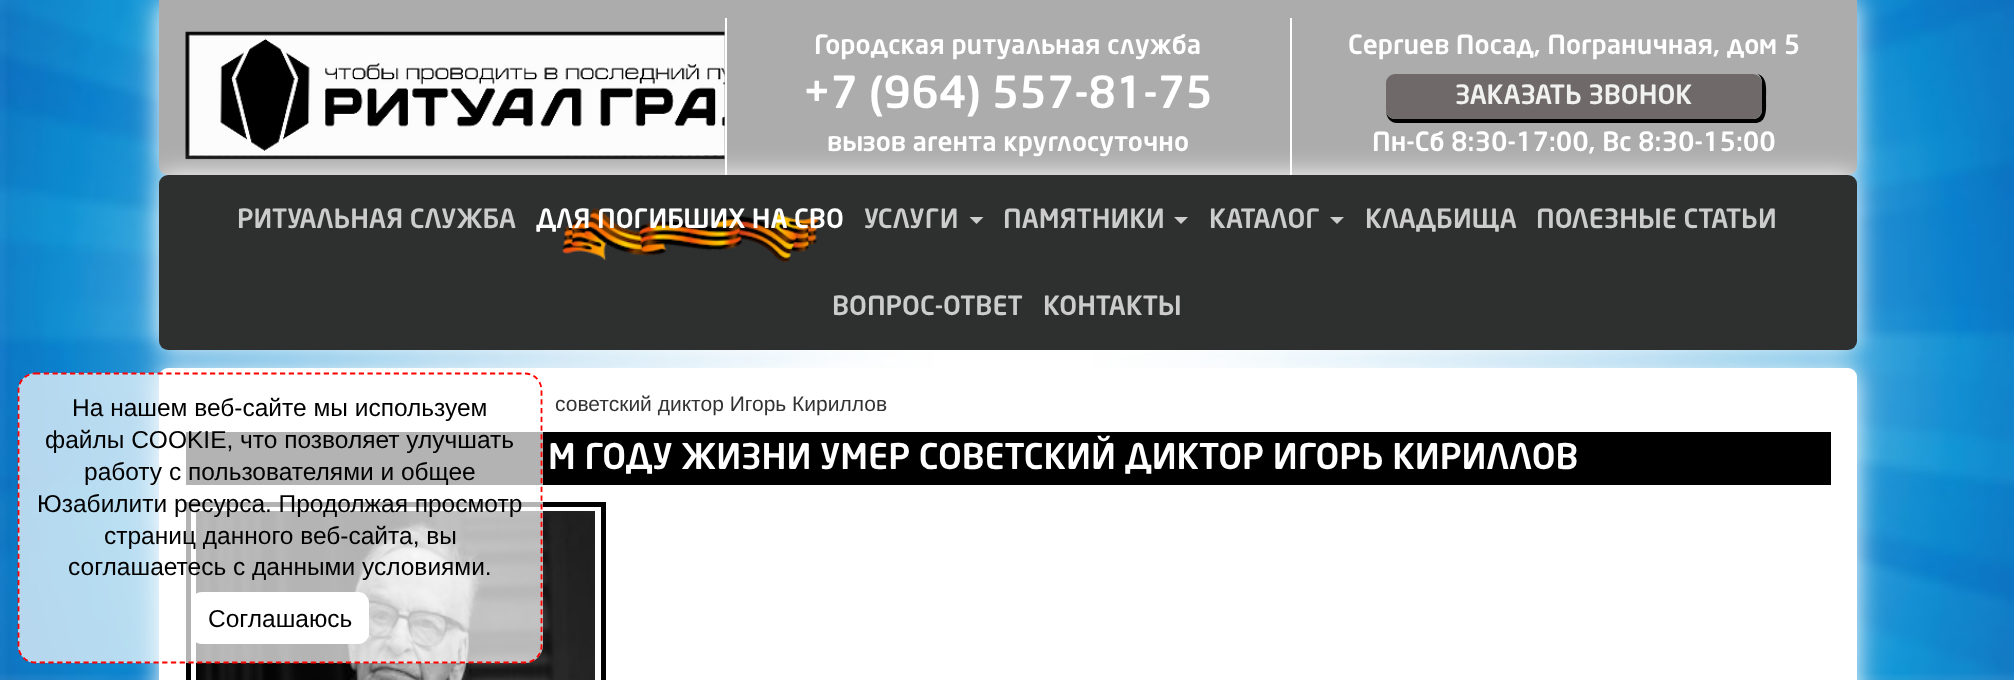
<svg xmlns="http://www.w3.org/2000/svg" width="2014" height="680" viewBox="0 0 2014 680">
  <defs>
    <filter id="blur1" x="-50%" y="-200%" width="200%" height="500%"><feGaussianBlur stdDeviation="13"/></filter>
  </defs>
  <rect width="100%" height="100%" fill="#ffffff"/>
  <image x="0" y="0" width="2014" height="680" href="img1.png"/>
  <rect x="159" y="0" width="1698" height="175" rx="9" fill="#ffffff" filter="url(#blur1)"/>
  <path d="M159 0H1857V166C1857 171 1853 175 1848 175H168C163 175 159 171 159 166Z" fill="#acacac"/>
  <image x="185" y="31" width="540" height="129" href="img2.png"/>
  <rect x="725" y="18" width="2" height="157" fill="#ffffff"/>
  <text x="814" y="54" font-family="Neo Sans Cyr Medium" font-size="26.25" font-weight="500" fill="#ffffff">Городская ритуальная служба</text>
  <text x="803" y="108" font-family="Neo Sans Cyr Medium" font-size="43.75" font-weight="500" fill="#ffffff">+7 (964) 557-81-75</text>
  <text x="827" y="151" font-family="Neo Sans Cyr Medium" font-size="26.25" font-weight="500" fill="#ffffff">вызов агента круглосуточно</text>
  <rect x="1290" y="18" width="2" height="157" fill="#ffffff"/>
  <text x="1348" y="54" font-family="Neo Sans Cyr Medium" font-size="26.25" font-weight="500" fill="#ffffff">Сергиев Посад, Пограничная, дом 5</text>
  <path d="M1386 110C1386 117 1390 123 1397 123H1755C1768 123 1766 107 1766 98C1766 90 1768 76 1757 74C1760 75 1762 79 1762 82V110C1762 115 1758 119 1754 119H1395C1390 119 1386 115 1386 110Z" fill="#000000"/>
  <rect x="1387" y="75" width="374" height="43" rx="8" fill="#6f6969" stroke="#6f6969" stroke-width="2"/>
  <text x="1455" y="104" font-family="Neo Sans Cyr Medium" font-size="26.25" font-weight="500" fill="#f1f1f1">ЗАКАЗАТЬ ЗВОНОК</text>
  <text x="1372" y="151" font-family="Neo Sans Cyr Medium" font-size="26.25" font-weight="500" fill="#ffffff">Пн-Сб 8:30-17:00, Вс 8:30-15:00</text>
  <rect x="159" y="368" width="1698" height="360" rx="9" fill="#ffffff" filter="url(#blur1)"/>
  <rect x="159" y="368" width="1698" height="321" rx="9" fill="#ffffff"/>
  <rect x="159" y="175" width="1698" height="175" rx="9" fill="#ffffff" filter="url(#blur1)"/>
  <rect x="159" y="175" width="1698" height="175" rx="9" fill="#2e302f"/>
  <text x="237" y="228" font-family="Neo Sans Cyr Medium" font-size="26.25" font-weight="500" fill="#cccccc">РИТУАЛЬНАЯ СЛУЖБА</text>
  <image x="561" y="208" width="258" height="55" href="img3.png"/>
  <text x="536" y="228" font-family="Neo Sans Cyr Medium" font-size="26.25" font-weight="500" fill="#ffffff">ДЛЯ ПОГИБШИХ НА СВО</text>
  <text x="864" y="228" font-family="Neo Sans Cyr Medium" font-size="26.25" font-weight="500" fill="#cccccc">УСЛУГИ</text>
  <path d="M969.5 217H983.5L976.5 224Z" fill="#cccccc"/>
  <text x="1003" y="228" font-family="Neo Sans Cyr Medium" font-size="26.25" font-weight="500" fill="#cccccc">ПАМЯТНИКИ</text>
  <path d="M1174 217H1188L1181 224Z" fill="#cccccc"/>
  <text x="1209" y="228" font-family="Neo Sans Cyr Medium" font-size="26.25" font-weight="500" fill="#cccccc">КАТАЛОГ</text>
  <path d="M1330 217H1344L1337 224Z" fill="#cccccc"/>
  <text x="1365" y="228" font-family="Neo Sans Cyr Medium" font-size="26.25" font-weight="500" fill="#cccccc">КЛАДБИЩА</text>
  <text x="1536" y="228" font-family="Neo Sans Cyr Medium" font-size="26.25" font-weight="500" fill="#cccccc">ПОЛЕЗНЫЕ СТАТЬИ</text>
  <text x="832" y="315" font-family="Neo Sans Cyr Medium" font-size="26.25" font-weight="500" fill="#cccccc">ВОПРОС-ОТВЕТ</text>
  <text x="1043" y="315" font-family="Neo Sans Cyr Medium" font-size="26.25" font-weight="500" fill="#cccccc">КОНТАКТЫ</text>
  <rect x="186" y="432" width="1645" height="53" fill="#000000"/>
  <rect x="188.5" y="504.5" width="415" height="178" fill="none" stroke="#000000" stroke-width="5"/>
  <image x="196" y="511" width="399" height="169" href="img4.png"/>
  <rect x="18" y="373" width="525" height="290" rx="18" fill="#ffffff" fill-opacity="0.7"/>
  <path d="M35 373.5H525C534 373.5 541.5 381 541.5 390V646C541.5 655 534 662.5 525 662.5H35C26 662.5 18.5 655 18.5 646V390C18.5 381 26 373.5 35 373.5Z" fill="none" stroke="#ff0000" stroke-width="1.8" stroke-dasharray="5.25 3.5"/>
  <text x="72" y="416" font-family="Liberation Sans" font-size="24.5" fill="#000000">На нашем веб-сайте мы используем</text>
  <text x="45" y="448" font-family="Liberation Sans" font-size="24.5" fill="#000000">файлы COOKIE, что позволяет улучшать</text>
  <text x="84" y="480" font-family="Liberation Sans" font-size="24.5" fill="#000000">работу с пользователями и общее</text>
  <text x="37" y="512" font-family="Liberation Sans" font-size="24.5" fill="#000000">Юзабилити ресурса. Продолжая просмотр</text>
  <text x="104" y="544" font-family="Liberation Sans" font-size="24.5" fill="#000000">страниц данного веб-сайта, вы</text>
  <text x="68" y="575" font-family="Liberation Sans" font-size="24.5" fill="#000000">соглашаетесь с данными условиями.</text>
  <rect x="191" y="592" width="178" height="52" rx="11" fill="#ffffff"/>
  <text x="208" y="627" font-family="Liberation Sans" font-size="24.5" fill="#000000">Соглашаюсь</text>
  <text x="555" y="411" font-family="Liberation Sans" font-size="21" fill="#333333">советский диктор Игорь Кириллов</text>
  <text x="548" y="469" font-family="Neo Sans Cyr Medium" font-size="35" font-weight="500" fill="#ffffff">М ГОДУ ЖИЗНИ УМЕР СОВЕТСКИЙ ДИКТОР ИГОРЬ КИРИЛЛОВ</text>
</svg>
